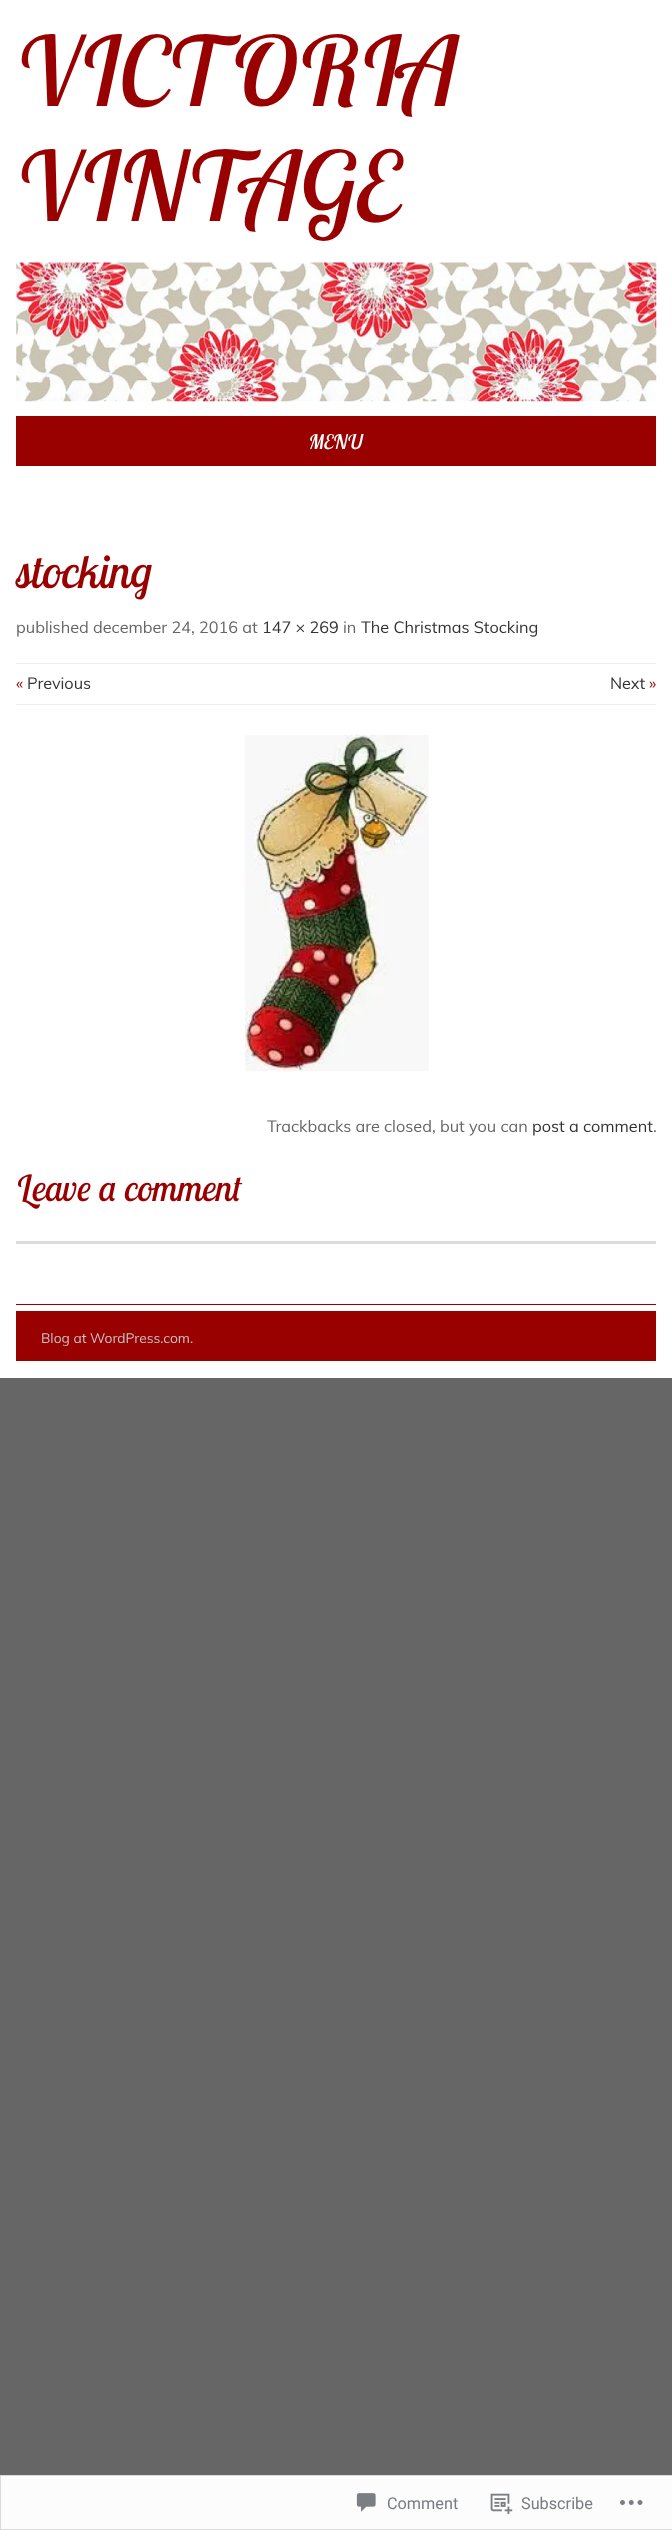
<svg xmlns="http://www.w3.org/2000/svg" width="672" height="2530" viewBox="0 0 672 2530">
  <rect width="100%" height="100%" fill="#666666"/>
  <rect x="0" y="0" width="672" height="1378" fill="#ffffff"/>
  <text x="16" y="106" font-family="Lobster Two" font-size="96" font-style="italic" fill="#990100">VICTORIA</text>
  <text x="16" y="221" font-family="Lobster Two" font-size="96" font-style="italic" fill="#990100">VINTAGE</text>
  <image x="16" y="262" width="641" height="140" href="img1.png"/>
  <rect x="16" y="416" width="640" height="50" fill="#990100"/>
  <text x="309" y="449" font-family="Lobster Two" font-size="20" font-style="italic" fill="#ffffff">MENU</text>
  <text x="16" y="588" font-family="Lobster Two" font-size="46" font-style="italic" fill="#990100">stocking</text>
  <text x="16" y="633" font-family="Muli" font-size="16.25" fill="#666666">published december 24, 2016 at</text>
  <text x="262" y="633" font-family="Muli" font-size="16.25" fill="#333333">147 × 269</text>
  <text x="343" y="633" font-family="Muli" font-size="16.25" fill="#666666">in</text>
  <text x="361" y="633" font-family="Muli" font-size="16.25" fill="#333333">The Christmas Stocking</text>
  <rect x="16" y="663" width="640" height="1" fill="#eeeeee"/>
  <rect x="16" y="704" width="640" height="1" fill="#eeeeee"/>
  <text x="16" y="689" font-family="Muli" font-size="16.25" fill="#990100">«</text>
  <text x="27" y="689" font-family="Muli" font-size="16.25" fill="#333333">Previous</text>
  <text x="610" y="689" font-family="Muli" font-size="16.25" fill="#333333">Next</text>
  <text x="649" y="689" font-family="Muli" font-size="16.25" fill="#990100">»</text>
  <image x="245" y="735" width="184" height="337" href="img2.png"/>
  <text x="267" y="1132" font-family="Muli" font-size="16.25" fill="#666666">Trackbacks are closed, but you can</text>
  <text x="532" y="1132" font-family="Muli" font-size="16.25" fill="#333333">post a comment</text>
  <text x="653" y="1132" font-family="Muli" font-size="16.25" fill="#666666">.</text>
  <text x="16" y="1201" font-family="Lobster Two" font-size="36" font-style="italic" fill="#990100">Leave a comment</text>
  <rect x="16" y="1241" width="640" height="3" fill="#dcdcde"/>
  <rect x="16" y="1304" width="640" height="1" fill="#990100"/>
  <rect x="16" y="1311" width="640" height="50" fill="#990100"/>
  <text x="41" y="1343" font-family="Muli" font-size="13.75" fill="#c4c4c4">Blog at WordPress.com.</text>
  <rect x="0.5" y="2475.5" width="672" height="54" fill="#fcfcfc" stroke="#dadadc"/>
  <image x="356" y="2493" width="20" height="19" href="img3.png"/>
  <text x="387" y="2509" font-family="Roboto" font-size="16.25" fill="#787c81">Comment</text>
  <image x="490" y="2493" width="23" height="22" href="img4.png"/>
  <text x="521" y="2509" font-family="Roboto" font-size="16.25" fill="#787c81">Subscribe</text>
  <image x="620" y="2500" width="23" height="5" href="img5.png"/>
</svg>
